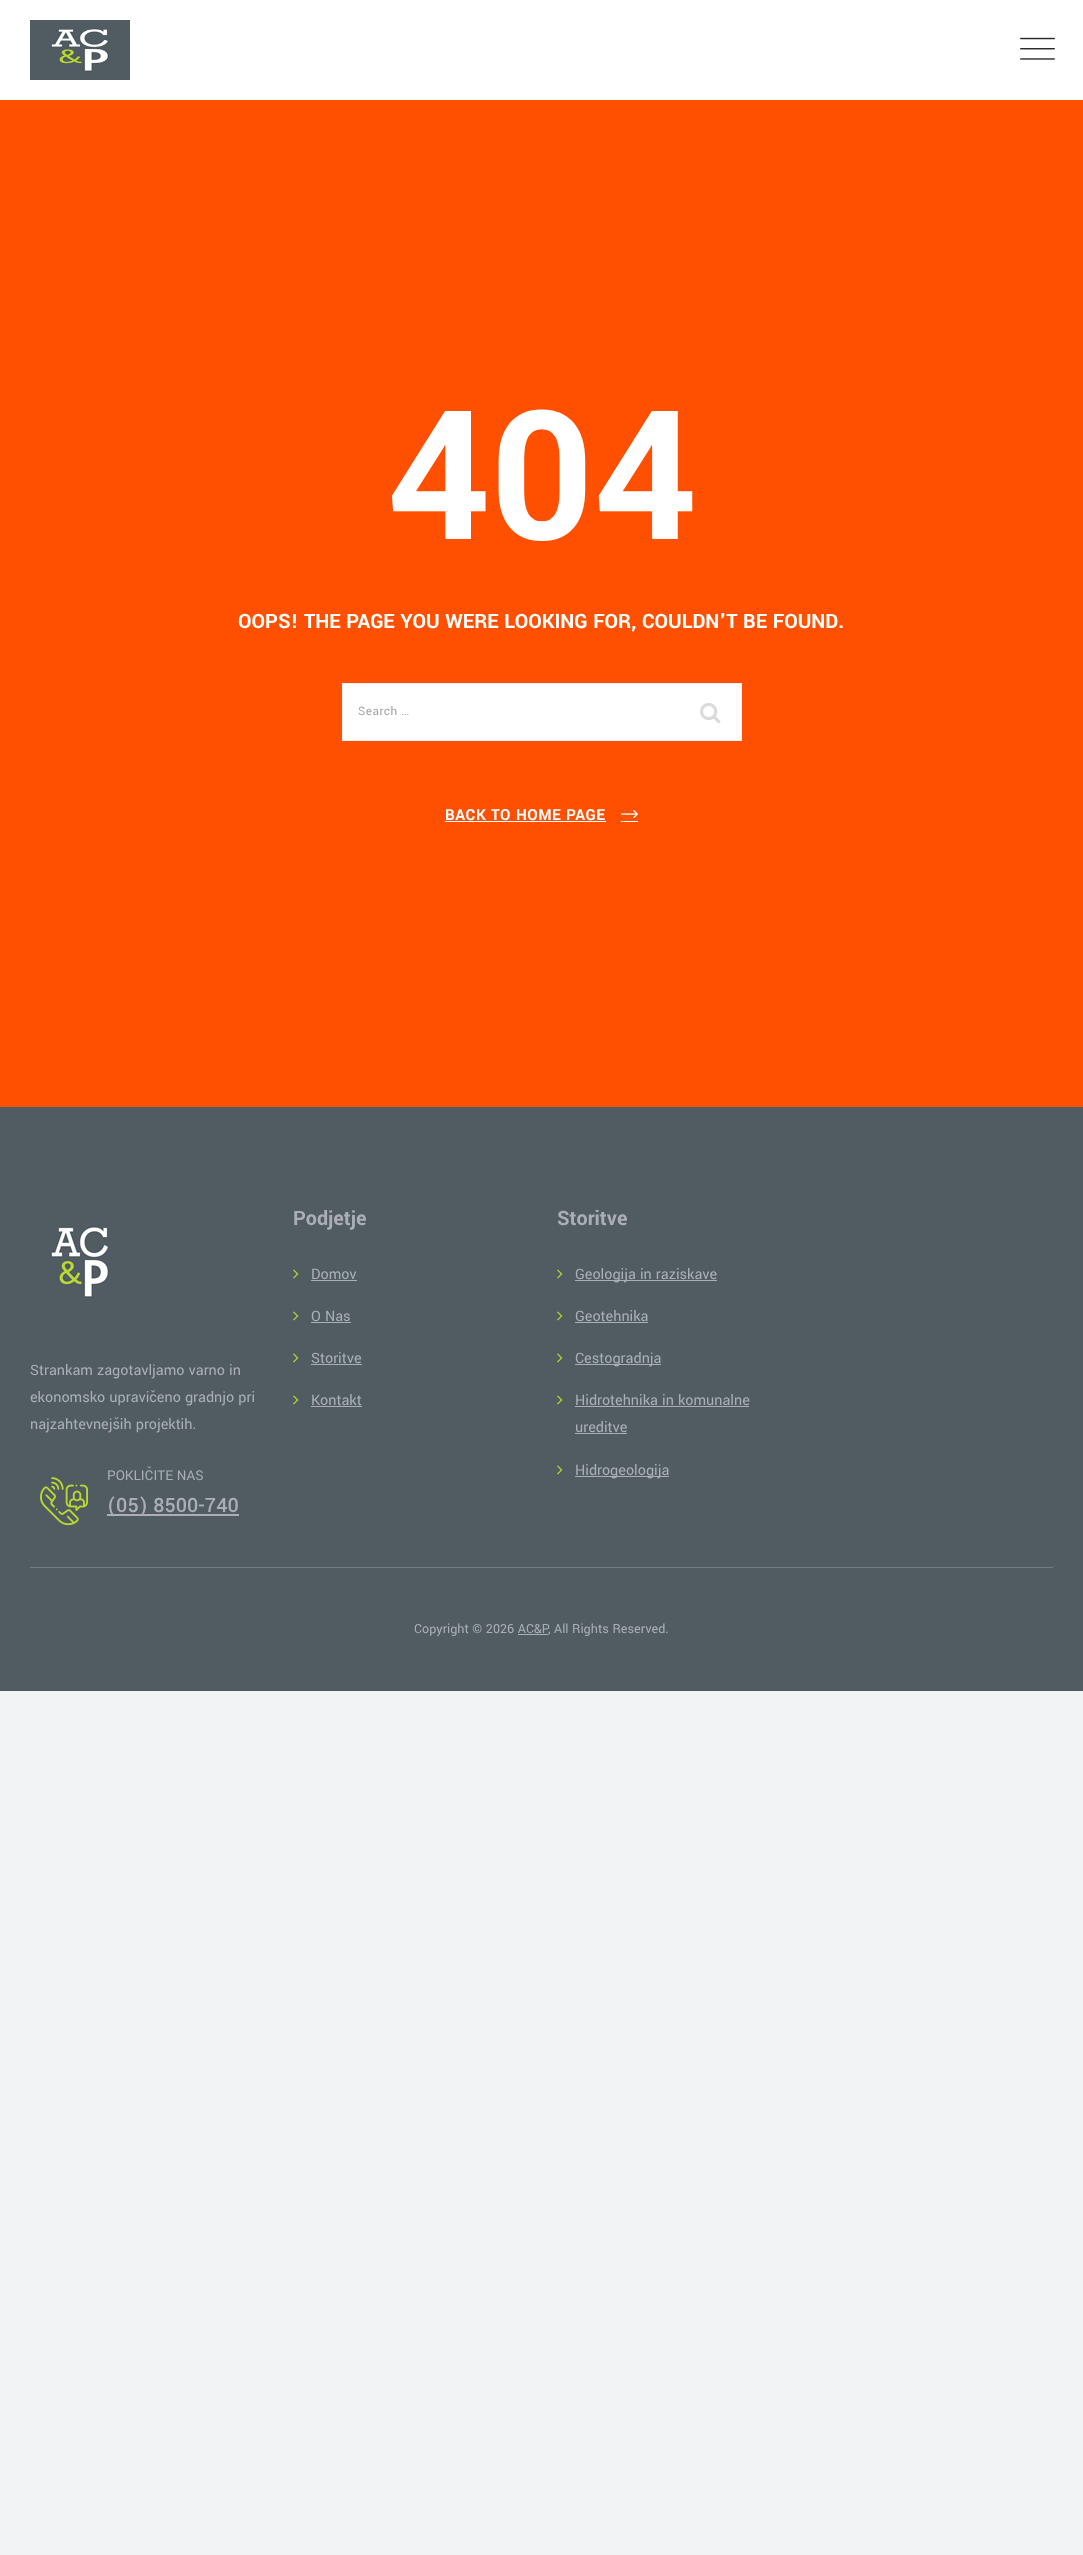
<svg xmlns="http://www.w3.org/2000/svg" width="1083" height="2555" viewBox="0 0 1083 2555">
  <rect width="100%" height="100%" fill="#f2f3f5"/>
  <rect x="0" y="0" width="1083" height="100" fill="#ffffff"/>
  <image x="30" y="20" width="100" height="60" href="img1.png"/>
  <image x="1020" y="37" width="35" height="23" href="img2.png"/>
  <rect x="0" y="100" width="1083" height="1007" fill="#ff5001"/>
  <text x="387" y="539" font-family="Yantramanav" font-size="200" font-weight="bold" fill="#ffffff">404</text>
  <text x="238" y="628" font-family="Yantramanav" font-size="22" font-weight="bold" fill="#ffffff">OOPS! THE PAGE YOU WERE LOOKING FOR, COULDN'T BE FOUND.</text>
  <rect x="342.5" y="683.5" width="399" height="57" fill="#ffffff" stroke="#f2f3f4"/>
  <text x="358" y="715" font-family="Yantramanav" font-size="13" letter-spacing="0.5" fill="#a4a4a4">Search …</text>
  <image x="700" y="702" width="21" height="22" href="img3.png"/>
  <text x="445" y="820" font-family="Yantramanav" font-size="17" font-weight="bold" letter-spacing="0.5" fill="#ffffff">BACK TO HOME PAGE</text>
  <rect x="445" y="821" width="161" height="1" fill="#ffffff"/>
  <image x="621" y="810" width="17" height="9" href="img4.png"/>
  <rect x="621" y="821" width="17" height="1" fill="#ffffff"/>
  <rect x="0" y="1107" width="1083" height="584" fill="#505b62"/>
  <image x="50" y="1226" width="59" height="72" href="img5.png"/>
  <text x="30" y="1375" font-family="Yantramanav" font-size="16" fill="#abafb5">Strankam zagotavljamo varno in</text>
  <text x="30" y="1402" font-family="Yantramanav" font-size="16" fill="#abafb5">ekonomsko upravičeno gradnjo pri</text>
  <text x="30" y="1429" font-family="Yantramanav" font-size="16" fill="#abafb5">najzahtevnejših projektih.</text>
  <image x="40" y="1477" width="48" height="49" href="img6.png"/>
  <text x="107" y="1480" font-family="Yantramanav" font-size="15" fill="#abafb5">POKLIČITE NAS</text>
  <rect x="107" y="1514" width="132" height="2" fill="#abafb5"/>
  <text x="107" y="1512" font-family="Yantramanav" font-size="22" font-weight="500" fill="#abafb5">(05) 8500-740</text>
  <text x="293" y="1225" font-family="Yantramanav" font-size="22" font-weight="bold" fill="#abafb5">Podjetje</text>
  <image x="293" y="1269" width="6" height="10" href="img7.png"/>
  <text x="311" y="1279" font-family="Yantramanav" font-size="16" fill="#abafb5">Domov</text>
  <rect x="311" y="1280" width="46" height="1" fill="#abafb5"/>
  <image x="293" y="1311" width="6" height="10" href="img7.png"/>
  <text x="311" y="1321" font-family="Yantramanav" font-size="16" fill="#abafb5">O Nas</text>
  <rect x="311" y="1322" width="40" height="1" fill="#abafb5"/>
  <image x="293" y="1353" width="6" height="10" href="img7.png"/>
  <text x="311" y="1363" font-family="Yantramanav" font-size="16" fill="#abafb5">Storitve</text>
  <rect x="311" y="1364" width="51" height="1" fill="#abafb5"/>
  <image x="293" y="1395" width="6" height="10" href="img7.png"/>
  <text x="311" y="1405" font-family="Yantramanav" font-size="16" fill="#abafb5">Kontakt</text>
  <rect x="311" y="1406" width="51" height="1" fill="#abafb5"/>
  <text x="557" y="1225" font-family="Yantramanav" font-size="22" font-weight="bold" fill="#abafb5">Storitve</text>
  <image x="557" y="1269" width="6" height="10" href="img7.png"/>
  <rect x="575" y="1280" width="142" height="1" fill="#abafb5"/>
  <text x="575" y="1279" font-family="Yantramanav" font-size="16" fill="#abafb5">Geologija in raziskave</text>
  <image x="557" y="1311" width="6" height="10" href="img7.png"/>
  <text x="575" y="1321" font-family="Yantramanav" font-size="16" fill="#abafb5">Geotehnika</text>
  <rect x="575" y="1322" width="73" height="1" fill="#abafb5"/>
  <image x="557" y="1353" width="6" height="10" href="img7.png"/>
  <rect x="575" y="1364" width="86" height="1" fill="#abafb5"/>
  <text x="575" y="1363" font-family="Yantramanav" font-size="16" fill="#abafb5">Cestogradnja</text>
  <image x="557" y="1395" width="6" height="10" href="img7.png"/>
  <text x="575" y="1405" font-family="Yantramanav" font-size="16" fill="#abafb5">Hidrotehnika in komunalne</text>
  <rect x="575" y="1406" width="174" height="1" fill="#abafb5"/>
  <text x="575" y="1432" font-family="Yantramanav" font-size="16" fill="#abafb5">ureditve</text>
  <rect x="575" y="1433" width="52" height="1" fill="#abafb5"/>
  <image x="557" y="1465" width="6" height="10" href="img7.png"/>
  <rect x="575" y="1476" width="94" height="1" fill="#abafb5"/>
  <text x="575" y="1475" font-family="Yantramanav" font-size="16" fill="#abafb5">Hidrogeologija</text>
  <rect x="30" y="1567" width="1023" height="1" fill="#737c81"/>
  <text x="414" y="1633" font-family="Yantramanav" font-size="14" fill="#abafb5">Copyright © 2026 AC&amp;P</text>
  <text x="548" y="1633" font-family="Yantramanav" font-size="14" fill="#abafb5">, All Rights Reserved.</text>
  <rect x="518" y="1634" width="30" height="1" fill="#abafb5"/>
</svg>
